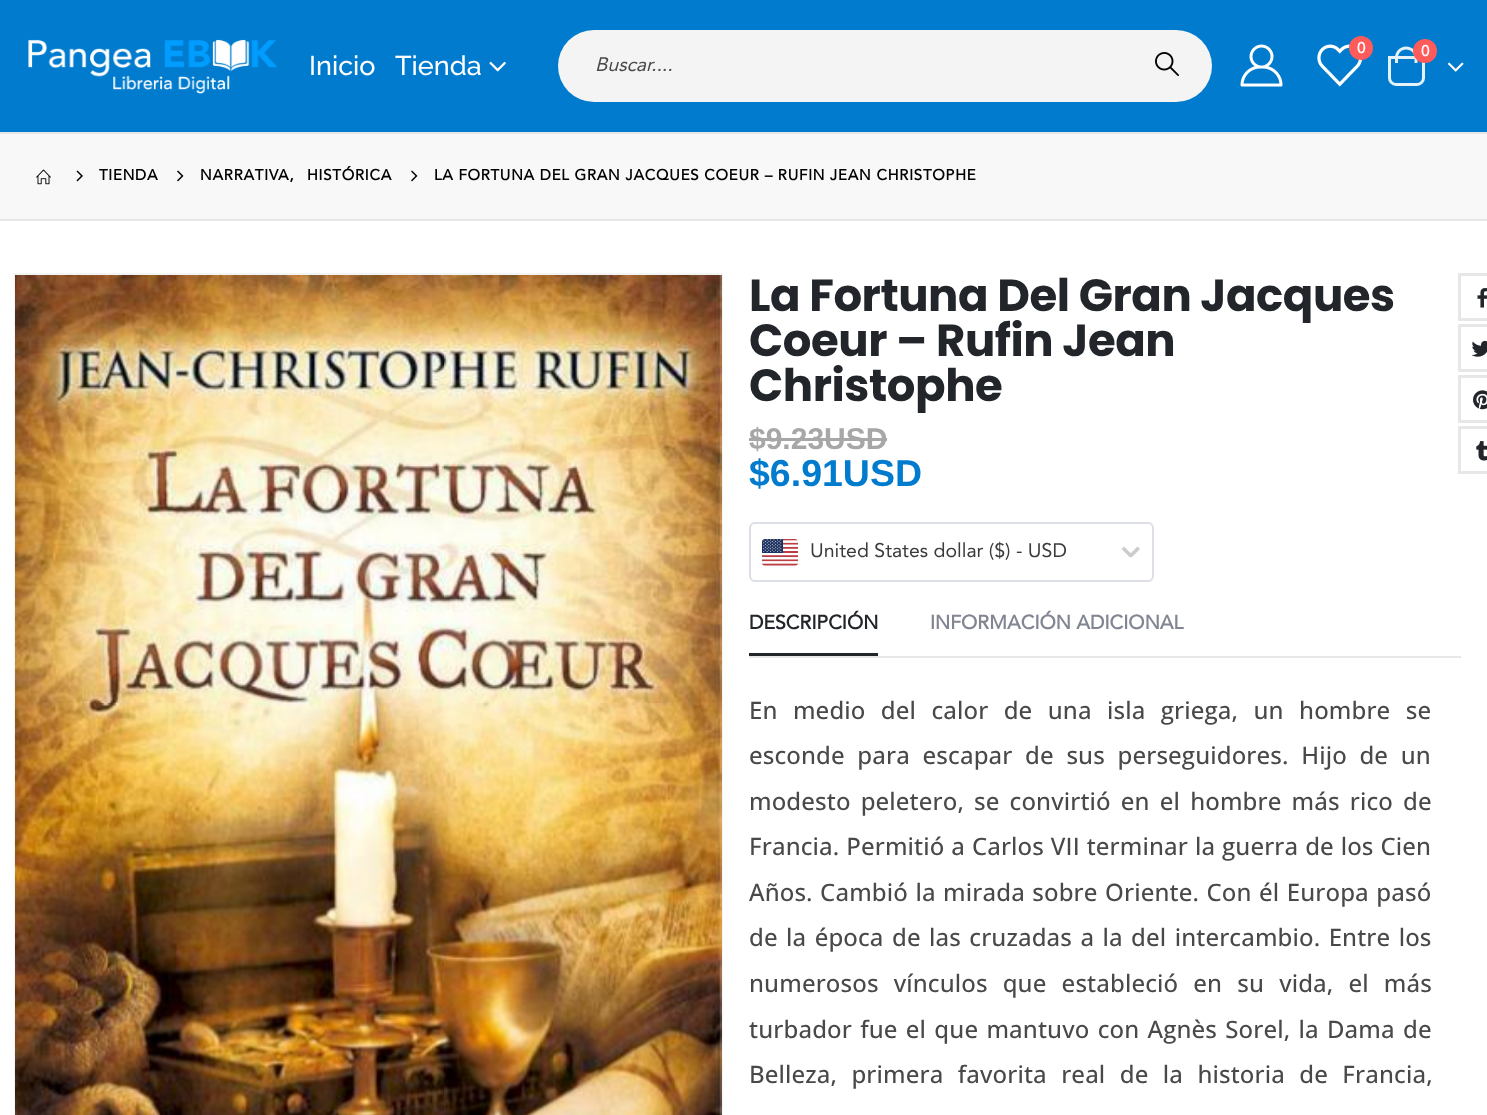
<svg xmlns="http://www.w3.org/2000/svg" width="1487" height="1115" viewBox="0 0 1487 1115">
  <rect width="100%" height="100%" fill="#007bce"/>
  <image x="28" y="39" width="249" height="55" href="img1.png"/>
  <text x="309" y="75" font-family="Raleway" font-size="27" font-weight="100" fill="#ffffff">Inicio</text>
  <text x="395" y="75" font-family="Raleway" font-size="27" font-weight="100" fill="#ffffff">Tienda</text>
  <image x="489" y="61" width="17" height="11" href="img2.png"/>
  <image x="1240" y="44" width="43" height="43" href="img3.png"/>
  <image x="1317" y="44" width="46" height="43" href="img4.png"/>
  <circle cx="1361" cy="48" r="12" fill="#ff5b5b"/>
  <text x="1357" y="53" font-family="Avenir" font-size="15" font-weight="bold" fill="#ffffff">0</text>
  <path d="M1389.5 57.5H1423.5V78C1423.5 81.5 1420.5 84.5 1417 84.5H1396C1392.5 84.5 1389.5 81.5 1389.5 78Z" fill="none" stroke="#e6f2fa" stroke-width="3"/>
  <path d="M1406 46.5C1412.5 46.5 1417.5 51.5 1417.5 58V63H1395V58C1395 51.5 1400 46.5 1406 46.5ZM1406 49.5C1411 49.5 1414.5 53 1414.5 58V63H1398V58C1398 53 1401.5 49.5 1406 49.5Z" fill="#e6f2fa" fill-rule="evenodd"/>
  <circle cx="1425" cy="51" r="12" fill="#ff5b5b"/>
  <text x="1421" y="56" font-family="Avenir" font-size="15" font-weight="bold" fill="#ffffff">0</text>
  <image x="1447" y="62" width="17" height="10" href="img5.png"/>
  <rect x="558" y="30" width="654" height="72" rx="36" fill="#f4f4f4"/>
  <text x="595" y="71" font-family="Avenir" font-size="19.5" font-style="italic" fill="#494949">Buscar....</text>
  <image x="1155" y="52" width="24" height="24" href="img6.png"/>
  <rect x="0" y="134" width="1487" height="85" fill="#f8f8f8"/>
  <rect x="0" y="132" width="1487" height="2" fill="#e7e7e7"/>
  <rect x="0" y="219" width="1487" height="2" fill="#e7e7e7"/>
  <image x="36" y="169" width="15" height="16" href="img7.png"/>
  <image x="76" y="170" width="7" height="12" href="img8.png"/>
  <text x="99" y="180" font-family="Avenir" font-size="15" font-weight="bold" letter-spacing="0.75" fill="#000000">TIENDA</text>
  <image x="177" y="170" width="7" height="12" href="img9.png"/>
  <text x="200" y="180" font-family="Avenir" font-size="15" font-weight="bold" letter-spacing="0.75" fill="#000000">NARRATIVA,</text>
  <text x="307" y="180" font-family="Avenir" font-size="15" font-weight="bold" letter-spacing="0.75" fill="#000000">HISTÓRICA</text>
  <image x="411" y="170" width="7" height="12" href="img9.png"/>
  <text x="434" y="180" font-family="Avenir" font-size="15" font-weight="bold" letter-spacing="0.75" fill="#000000">LA FORTUNA DEL GRAN JACQUES COEUR – RUFIN JEAN CHRISTOPHE</text>
  <rect x="0" y="221" width="1487" height="894" fill="#ffffff"/>
  <rect x="15" y="274" width="707" height="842" fill="none" stroke="#f4f4f4" stroke-width="2"/>
  <image x="15" y="275" width="707" height="840" href="img10.png"/>
  <text x="749" y="311" font-family="Poppins" font-size="45" font-weight="bold" letter-spacing="-0.45" fill="#222529">La Fortuna Del Gran Jacques</text>
  <text x="749" y="356" font-family="Poppins" font-size="45" font-weight="bold" letter-spacing="-0.45" fill="#222529">Coeur – Rufin Jean</text>
  <text x="749" y="401" font-family="Poppins" font-size="45" font-weight="bold" letter-spacing="-0.45" fill="#222529">Christophe</text>
  <rect x="1459.5" y="274.5" width="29" height="45" fill="none" stroke="#e7e7e7" stroke-width="3"/>
  <image x="1477" y="288" width="10" height="20" href="img11.png"/>
  <rect x="1459.5" y="325.5" width="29" height="45" fill="none" stroke="#e7e7e7" stroke-width="3"/>
  <image x="1471" y="340" width="16" height="17" href="img12.png"/>
  <rect x="1459.5" y="376.5" width="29" height="45" fill="none" stroke="#e7e7e7" stroke-width="3"/>
  <image x="1473" y="390" width="14" height="20" href="img13.png"/>
  <rect x="1459.5" y="427.5" width="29" height="45" fill="none" stroke="#e7e7e7" stroke-width="3"/>
  <image x="1476" y="441" width="11" height="20" href="img14.png"/>
  <text x="749" y="449" font-family="Liberation Sans" font-size="30" font-weight="bold" fill="#a7a7a7">$9.23USD</text>
  <rect x="749" y="438" width="138" height="3" fill="#a7a7a7"/>
  <text x="749" y="486" font-family="Liberation Sans" font-size="37.5" font-weight="bold" fill="#007bce">$6.91USD</text>
  <rect x="750" y="523" width="403" height="58" rx="5" fill="none" stroke="#dcdfe6" stroke-width="2"/>
  <image x="762" y="539" width="36" height="27" href="img15.png"/>
  <text x="810" y="557" font-family="Avenir" font-size="19.5" fill="#3b3b3b">United States dollar ($) - USD</text>
  <path d="M1121.5 549L1124 546.5L1132.5 555L1130 557.5Z" fill="#cccccc"/>
  <path d="M1137.5 546.5L1140 549L1131.5 557.5L1129 555Z" fill="#cccccc"/>
  <rect x="749" y="653" width="129" height="3" fill="#222529"/>
  <text x="749" y="629" font-family="Avenir" font-size="19.5" font-weight="bold" fill="#222529">DESCRIPCIÓN</text>
  <text x="930" y="629" font-family="Avenir" font-size="19.5" font-weight="bold" fill="#818692">INFORMACIÓN ADICIONAL</text>
  <rect x="749" y="656" width="712" height="2" fill="#e7e7e7"/>
  <text x="749" y="719" word-spacing="9" font-family="Open Sans" font-size="24" font-weight="500" letter-spacing="0.12" fill="#494949">En medio del calor de una isla griega, un hombre se</text>
  <text x="749" y="764" word-spacing="6.25" font-family="Open Sans" font-size="24" font-weight="500" letter-spacing="0.12" fill="#494949">esconde para escapar de sus perseguidores. Hijo de un</text>
  <text x="749" y="810" word-spacing="3.75" font-family="Open Sans" font-size="24" font-weight="500" letter-spacing="0.12" fill="#494949">modesto peletero, se convirtió en el hombre más rico de</text>
  <text x="749" y="855" word-spacing="0.5" font-family="Open Sans" font-size="24" font-weight="500" letter-spacing="0.12" fill="#494949">Francia. Permitió a Carlos VII terminar la guerra de los Cien</text>
  <text x="749" y="901" word-spacing="1.1" font-family="Open Sans" font-size="24" font-weight="500" letter-spacing="0.12" fill="#494949">Años. Cambió la mirada sobre Oriente. Con él Europa pasó</text>
  <text x="749" y="946" word-spacing="2" font-family="Open Sans" font-size="24" font-weight="500" letter-spacing="0.12" fill="#494949">de la época de las cruzadas a la del intercambio. Entre los</text>
  <text x="749" y="992" word-spacing="8.75" font-family="Open Sans" font-size="24" font-weight="500" letter-spacing="0.12" fill="#494949">numerosos vínculos que estableció en su vida, el más</text>
  <text x="749" y="1038" word-spacing="1.9" font-family="Open Sans" font-size="24" font-weight="500" letter-spacing="0.12" fill="#494949">turbador fue el que mantuvo con Agnès Sorel, la Dama de</text>
  <text x="749" y="1083" word-spacing="8" font-family="Open Sans" font-size="24" font-weight="500" letter-spacing="0.12" fill="#494949">Belleza, primera favorita real de la historia de Francia,</text>
</svg>
